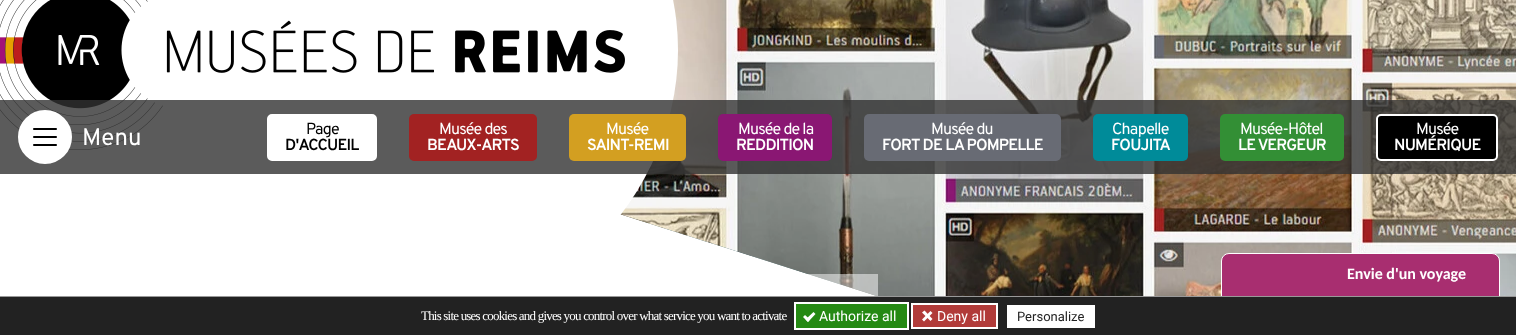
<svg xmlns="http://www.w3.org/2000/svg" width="1516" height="335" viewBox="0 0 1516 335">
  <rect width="100%" height="100%" fill="#ffffff"/>
  <image x="620" y="214" width="257" height="82" href="img3.png"/>
  <image x="620" y="0" width="896" height="296" href="img2.png"/>
  <ellipse cx="329" cy="50" rx="349" ry="300" fill="#ffffff"/>
  <image x="0" y="0" width="625" height="150" href="img1.png"/>
  <rect x="0" y="100" width="1516" height="74" fill="#323232" fill-opacity="0.8"/>
  <circle cx="45" cy="137" r="26" fill="#ffffff" stroke="#ffffff" stroke-width="2"/>
  <image x="33" y="128" width="24" height="18" href="img4.png"/>
  <text x="82" y="145" font-family="Overpass" font-size="24" fill="#ffffff">Menu</text>
  <rect x="268" y="115" width="108" height="45" rx="4" fill="#ffffff" stroke="#ffffff" stroke-width="2"/>
  <text x="306" y="134" font-family="Overpass" font-size="16" letter-spacing="-0.8" fill="#000000">Page</text>
  <text x="285" y="150" font-family="Overpass" font-size="16" font-weight="600" letter-spacing="-0.8" fill="#000000">D'ACCUEIL</text>
  <rect x="409" y="114" width="128" height="47" rx="5" fill="#a22222"/>
  <text x="439" y="134" font-family="Overpass" font-size="16" letter-spacing="-0.8" fill="#ffffff">Musée des</text>
  <text x="427" y="150" font-family="Overpass" font-size="16" font-weight="600" letter-spacing="-0.8" fill="#ffffff">BEAUX-ARTS</text>
  <rect x="569" y="114" width="117" height="47" rx="5" fill="#d39f21"/>
  <text x="606" y="134" font-family="Overpass" font-size="16" letter-spacing="-0.8" fill="#ffffff">Musée</text>
  <text x="587" y="150" font-family="Overpass" font-size="16" font-weight="600" letter-spacing="-0.8" fill="#ffffff">SAINT-REMI</text>
  <rect x="718" y="114" width="114" height="47" rx="5" fill="#8a1773"/>
  <text x="738" y="134" font-family="Overpass" font-size="16" letter-spacing="-0.8" fill="#ffffff">Musée de la</text>
  <text x="736" y="150" font-family="Overpass" font-size="16" font-weight="600" letter-spacing="-0.8" fill="#ffffff">REDDITION</text>
  <rect x="864" y="114" width="197" height="47" rx="5" fill="#686b74"/>
  <text x="931" y="134" font-family="Overpass" font-size="16" letter-spacing="-0.8" fill="#ffffff">Musée du</text>
  <text x="882" y="150" font-family="Overpass" font-size="16" font-weight="600" letter-spacing="-0.8" fill="#ffffff">FORT DE LA POMPELLE</text>
  <rect x="1093" y="114" width="95" height="47" rx="5" fill="#008b99"/>
  <text x="1112" y="134" font-family="Overpass" font-size="16" letter-spacing="-0.8" fill="#ffffff">Chapelle</text>
  <text x="1111" y="150" font-family="Overpass" font-size="16" font-weight="600" letter-spacing="-0.8" fill="#ffffff">FOUJITA</text>
  <rect x="1220" y="114" width="124" height="47" rx="5" fill="#338f35"/>
  <text x="1240" y="134" font-family="Overpass" font-size="16" letter-spacing="-0.8" fill="#ffffff">Musée-Hôtel</text>
  <text x="1238" y="150" font-family="Overpass" font-size="16" font-weight="600" letter-spacing="-0.8" fill="#ffffff">LE VERGEUR</text>
  <rect x="1377" y="115" width="120" height="45" rx="4" fill="#000000" stroke="#ffffff" stroke-width="2"/>
  <text x="1416" y="134" font-family="Overpass" font-size="16" letter-spacing="-0.8" fill="#ffffff">Musée</text>
  <text x="1394" y="150" font-family="Overpass" font-size="16" font-weight="600" letter-spacing="-0.8" fill="#ffffff">NUMÉRIQUE</text>
  <rect x="808" y="274" width="70" height="22" fill="#ffffff" fill-opacity="0.5"/>
  <rect x="1221.5" y="253.5" width="278" height="65" rx="7.5" fill="#a82e70" stroke="#ffffff"/>
  <text x="1347" y="279" font-family="Carlito" font-size="16" font-weight="bold" fill="#ffffff">Envie d'un voyage</text>
  <rect x="0" y="297" width="1516" height="38" fill="#222222"/>
  <rect x="0" y="296" width="1516" height="1" fill="#999999"/>
  <text x="421" y="320" font-family="Liberation Serif" font-size="13" letter-spacing="-0.8" fill="#ffffff">This site uses cookies and gives you control over what service you want to activate</text>
  <rect x="795" y="303" width="113" height="26" fill="#258913" stroke="#ffffff" stroke-width="2"/>
  <path d="M813.5 312L815.5 314L808 322L805.5 319.5Z" fill="#ffffff"/>
  <path d="M805 315L810 319.5L808 322L803 317Z" fill="#ffffff"/>
  <text x="819" y="321" font-family="Roboto" font-size="14" fill="#ffffff">Authorize all</text>
  <rect x="912" y="304" width="85" height="24" fill="#b13b39" stroke="#ffffff" stroke-width="2"/>
  <path d="M922 312.5L924.5 310.5L932.5 319L930.5 321Z" fill="#ffffff"/>
  <path d="M930.5 311L932.5 313L924 321.5L922 319.5Z" fill="#ffffff"/>
  <text x="937" y="321" font-family="Roboto" font-size="14" fill="#ffffff">Deny all</text>
  <rect x="1007" y="305" width="88" height="23" fill="#ffffff"/>
  <text x="1017" y="321" font-family="Roboto" font-size="13" fill="#222222">Personalize</text>
</svg>
